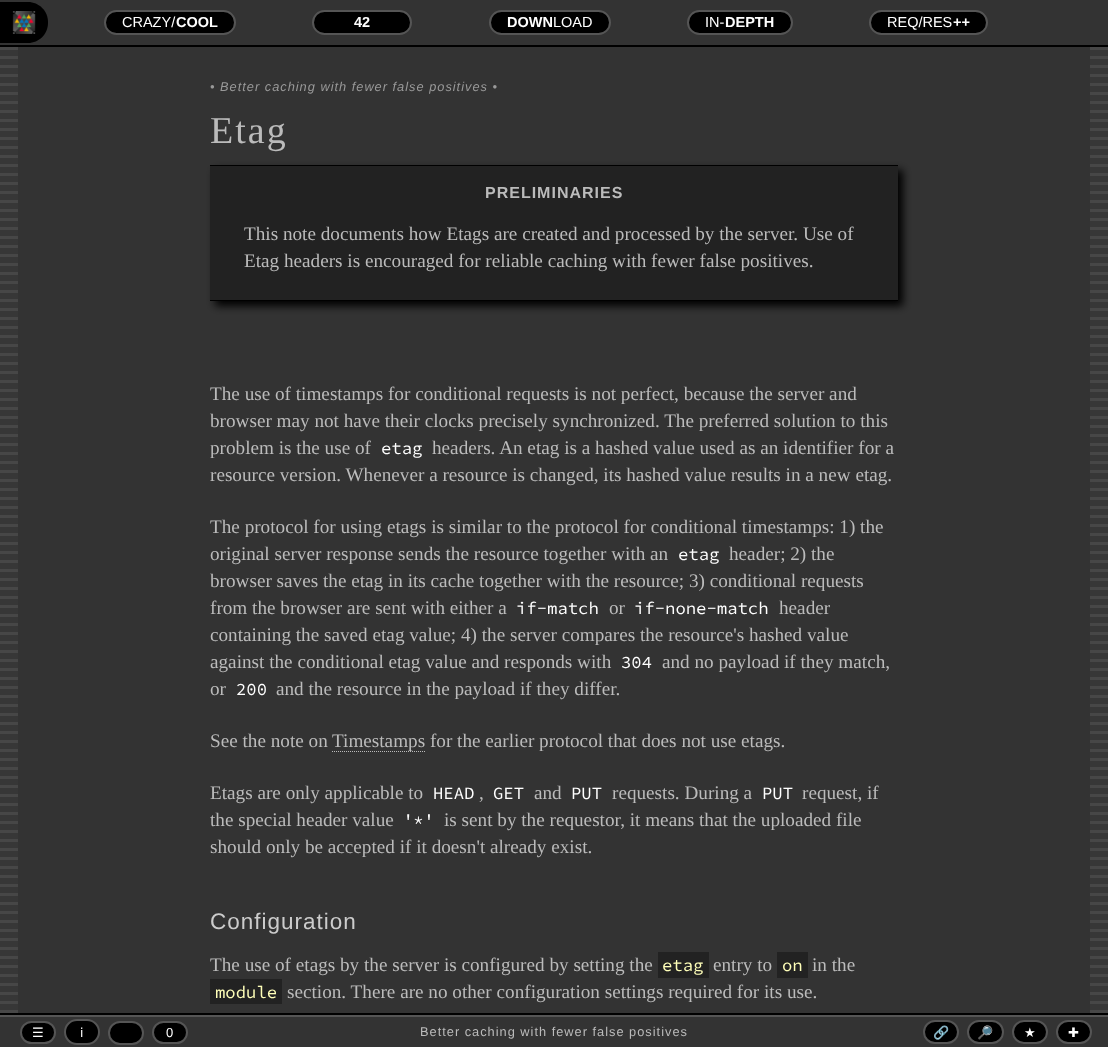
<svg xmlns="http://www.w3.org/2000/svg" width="1108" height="1047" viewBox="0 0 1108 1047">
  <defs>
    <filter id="blur1" x="-50%" y="-200%" width="200%" height="500%"><feGaussianBlur stdDeviation="4"/></filter>
  </defs>
  <rect width="100%" height="100%" fill="#333333"/>
  <path d="M0 2H28C39 2 48 11 48 22V23C48 34 39 43 28 43H0Z" fill="#000000"/>
  <image x="12" y="11" width="24" height="23" href="img1.png"/>
  <rect x="105" y="11" width="130" height="23" rx="11.5" fill="#000000" stroke="#555555" stroke-width="2"/>
  <text x="122" y="27" font-family="Liberation Sans" font-size="14.5" fill="#ffffff">CRAZY/</text>
  <text x="176" y="27" font-family="Liberation Sans" font-size="14.5" font-weight="bold" fill="#ffffff">COOL</text>
  <rect x="313" y="11" width="98" height="23" rx="11.5" fill="#000000" stroke="#555555" stroke-width="2"/>
  <text x="354" y="27" font-family="Liberation Sans" font-size="14.5" font-weight="bold" fill="#ffffff">42</text>
  <rect x="490" y="11" width="120" height="23" rx="11.5" fill="#000000" stroke="#555555" stroke-width="2"/>
  <text x="507" y="27" font-family="Liberation Sans" font-size="14.5" font-weight="bold" fill="#ffffff">DOWN</text>
  <text x="553" y="27" font-family="Liberation Sans" font-size="14.5" fill="#ffffff">LOAD</text>
  <rect x="688" y="11" width="104" height="23" rx="11.5" fill="#000000" stroke="#555555" stroke-width="2"/>
  <text x="705" y="27" font-family="Liberation Sans" font-size="14.5" fill="#ffffff">IN-</text>
  <text x="725" y="27" font-family="Liberation Sans" font-size="14.5" font-weight="bold" fill="#ffffff">DEPTH</text>
  <rect x="870" y="11" width="117" height="23" rx="11.5" fill="#000000" stroke="#555555" stroke-width="2"/>
  <text x="887" y="27" font-family="Liberation Sans" font-size="14.5" fill="#ffffff">REQ/RES</text>
  <text x="953" y="27" font-family="Liberation Sans" font-size="14.5" font-weight="bold" fill="#ffffff">++</text>
  <image x="0" y="47" width="1108" height="966" href="img2.png"/>
  <rect x="0" y="45" width="1108" height="2" fill="#000000"/>
  <rect x="0" y="1013" width="1108" height="2" fill="#000000"/>
  <rect x="18" y="47" width="1072" height="966" fill="#333333"/>
  <text x="210" y="91" font-family="Liberation Sans" font-size="12.8" font-style="italic" letter-spacing="1" fill="#999999">• Better caching with fewer false positives •</text>
  <text x="210" y="143" font-family="Liberation Serif" font-size="38" letter-spacing="2" fill="#bbbbbb">Etag</text>
  <rect x="215" y="170" width="688" height="136" fill="#000000" filter="url(#blur1)"/>
  <rect x="210" y="166" width="688" height="134" fill="#222222"/>
  <rect x="210" y="165" width="688" height="1" fill="#000000"/>
  <rect x="210" y="300" width="688" height="1" fill="#000000"/>
  <text x="485" y="198" font-family="Liberation Sans" font-size="16" font-weight="bold" letter-spacing="1" fill="#bbbbbb">PRELIMINARIES</text>
  <text x="244" y="240" font-family="Liberation Serif" font-size="19.2" fill="#bbbbbb">This note documents how Etags are created and processed by the server. Use of</text>
  <text x="244" y="267" font-family="Liberation Serif" font-size="19.2" fill="#bbbbbb">Etag headers is encouraged for reliable caching with fewer false positives.</text>
  <text x="210" y="400" font-family="Liberation Serif" font-size="19.2" fill="#bbbbbb">The use of timestamps for conditional requests is not perfect, because the server and</text>
  <text x="210" y="427" font-family="Liberation Serif" font-size="19.2" fill="#bbbbbb">browser may not have their clocks precisely synchronized. The preferred solution to this</text>
  <text x="210" y="454" font-family="Liberation Serif" font-size="19.2" fill="#bbbbbb">problem is the use of</text>
  <text x="381" y="454" font-family="Source Code Pro" font-size="17.25" fill="#ffffff">etag</text>
  <text x="432" y="454" font-family="Liberation Serif" font-size="19.2" fill="#bbbbbb">headers. An etag is a hashed value used as an identifier for a</text>
  <text x="210" y="481" font-family="Liberation Serif" font-size="19.2" fill="#bbbbbb">resource version. Whenever a resource is changed, its hashed value results in a new etag.</text>
  <text x="210" y="533" font-family="Liberation Serif" font-size="19.2" fill="#bbbbbb">The protocol for using etags is similar to the protocol for conditional timestamps: 1) the</text>
  <text x="210" y="560" font-family="Liberation Serif" font-size="19.2" fill="#bbbbbb">original server response sends the resource together with an</text>
  <text x="678" y="560" font-family="Source Code Pro" font-size="17.25" fill="#ffffff">etag</text>
  <text x="729" y="560" font-family="Liberation Serif" font-size="19.2" fill="#bbbbbb">header; 2) the</text>
  <text x="210" y="587" font-family="Liberation Serif" font-size="19.2" fill="#bbbbbb">browser saves the etag in its cache together with the resource; 3) conditional requests</text>
  <text x="210" y="614" font-family="Liberation Serif" font-size="19.2" fill="#bbbbbb">from the browser are sent with either a</text>
  <text x="516" y="614" font-family="Source Code Pro" font-size="17.25" fill="#ffffff">if-match</text>
  <text x="609" y="614" font-family="Liberation Serif" font-size="19.2" fill="#bbbbbb">or</text>
  <text x="634" y="614" font-family="Source Code Pro" font-size="17.25" fill="#ffffff">if-none-match</text>
  <text x="779" y="614" font-family="Liberation Serif" font-size="19.2" fill="#bbbbbb">header</text>
  <text x="210" y="641" font-family="Liberation Serif" font-size="19.2" fill="#bbbbbb">containing the saved etag value; 4) the server compares the resource's hashed value</text>
  <text x="210" y="668" font-family="Liberation Serif" font-size="19.2" fill="#bbbbbb">against the conditional etag value and responds with</text>
  <text x="621" y="668" font-family="Source Code Pro" font-size="17.25" fill="#ffffff">304</text>
  <text x="662" y="668" font-family="Liberation Serif" font-size="19.2" fill="#bbbbbb">and no payload if they match,</text>
  <text x="210" y="695" font-family="Liberation Serif" font-size="19.2" fill="#bbbbbb">or</text>
  <text x="236" y="695" font-family="Source Code Pro" font-size="17.25" fill="#ffffff">200</text>
  <text x="276" y="695" font-family="Liberation Serif" font-size="19.2" fill="#bbbbbb">and the resource in the payload if they differ.</text>
  <text x="210" y="747" font-family="Liberation Serif" font-size="19.2" fill="#bbbbbb">See the note on</text>
  <path d="M332 751.5H425" fill="none" stroke="#bbbbbb" stroke-dasharray="1 1"/>
  <text x="332" y="747" font-family="Liberation Serif" font-size="19.2" fill="#bbbbbb">Timestamps for the earlier protocol that does not use etags.</text>
  <text x="210" y="799" font-family="Liberation Serif" font-size="19.2" fill="#bbbbbb">Etags are only applicable to</text>
  <text x="433" y="799" font-family="Source Code Pro" font-size="17.25" fill="#ffffff">HEAD</text>
  <text x="479" y="799" font-family="Liberation Serif" font-size="19.2" fill="#bbbbbb">,</text>
  <text x="493" y="799" font-family="Source Code Pro" font-size="17.25" fill="#ffffff">GET</text>
  <text x="534" y="799" font-family="Liberation Serif" font-size="19.2" fill="#bbbbbb">and</text>
  <text x="571" y="799" font-family="Source Code Pro" font-size="17.25" fill="#ffffff">PUT</text>
  <text x="612" y="799" font-family="Liberation Serif" font-size="19.2" fill="#bbbbbb">requests. During a</text>
  <text x="762" y="799" font-family="Source Code Pro" font-size="17.25" fill="#ffffff">PUT</text>
  <text x="802" y="799" font-family="Liberation Serif" font-size="19.2" fill="#bbbbbb">request, if</text>
  <text x="210" y="826" font-family="Liberation Serif" font-size="19.2" fill="#bbbbbb">the special header value</text>
  <text x="403" y="826" font-family="Source Code Pro" font-size="17.25" fill="#ffffff">'*'</text>
  <text x="444" y="826" font-family="Liberation Serif" font-size="19.2" fill="#bbbbbb">is sent by the requestor, it means that the uploaded file</text>
  <text x="210" y="853" font-family="Liberation Serif" font-size="19.2" fill="#bbbbbb">should only be accepted if it doesn't already exist.</text>
  <text x="210" y="929" font-family="Liberation Sans" font-size="22.5" letter-spacing="1" fill="#cccccc">Configuration</text>
  <text x="210" y="971" font-family="Liberation Serif" font-size="19.2" fill="#bbbbbb">The use of etags by the server is configured by setting the</text>
  <rect x="658" y="952" width="51" height="26" fill="#222222"/>
  <text x="662" y="971" font-family="Source Code Pro" font-size="17.25" fill="#ffffb9">etag</text>
  <text x="713" y="971" font-family="Liberation Serif" font-size="19.2" fill="#bbbbbb">entry to</text>
  <rect x="777" y="952" width="31" height="26" fill="#222222"/>
  <text x="782" y="971" font-family="Source Code Pro" font-size="17.25" fill="#ffffb9">on</text>
  <text x="812" y="971" font-family="Liberation Serif" font-size="19.2" fill="#bbbbbb">in the</text>
  <rect x="210" y="979" width="72" height="25" fill="#222222"/>
  <text x="215" y="998" font-family="Source Code Pro" font-size="17.25" fill="#ffffb9">module</text>
  <text x="287" y="998" font-family="Liberation Serif" font-size="19.2" fill="#bbbbbb">section. There are no other configuration settings required for its use.</text>
  <rect x="0" y="1015" width="1108" height="2" fill="#555555"/>
  <rect x="21" y="1022" width="34" height="21" rx="10.5" fill="#000000" stroke="#555555" stroke-width="2"/>
  <text x="32" y="1037" font-family="DejaVu Sans" font-size="13" fill="#ffffff">☰</text>
  <rect x="65" y="1020" width="34" height="24" rx="12" fill="#000000" stroke="#555555" stroke-width="2"/>
  <text x="80" y="1037" font-family="Noto Sans" font-size="13" fill="#ffffff">ℹ</text>
  <rect x="109" y="1022" width="34" height="22" rx="11" fill="#000000" stroke="#555555" stroke-width="2"/>
  <rect x="153" y="1022" width="34" height="21" rx="10.5" fill="#000000" stroke="#555555" stroke-width="2"/>
  <text x="166" y="1037" font-family="Liberation Sans" font-size="13" fill="#ffffff">0</text>
  <text x="420" y="1036" font-family="Liberation Sans" font-size="12.8" letter-spacing="1" fill="#bbbbbb">Better caching with fewer false positives</text>
  <rect x="924" y="1021" width="34" height="22" rx="11" fill="#000000" stroke="#555555" stroke-width="2"/>
  <text x="933" y="1037" font-family="Noto Color Emoji" font-size="13" fill="#ffffff">🔗</text>
  <rect x="968" y="1021" width="35" height="22" rx="11" fill="#000000" stroke="#555555" stroke-width="2"/>
  <text x="977" y="1037" font-family="Noto Color Emoji" font-size="13" fill="#ffffff">🔎</text>
  <rect x="1013" y="1021" width="34" height="22" rx="11" fill="#000000" stroke="#555555" stroke-width="2"/>
  <text x="1024" y="1037" font-family="DejaVu Sans" font-size="13" fill="#ffffff">★</text>
  <rect x="1057" y="1021" width="34" height="22" rx="11" fill="#000000" stroke="#555555" stroke-width="2"/>
  <text x="1068" y="1037" font-family="DejaVu Sans" font-size="13" fill="#ffffff">✚</text>
</svg>
